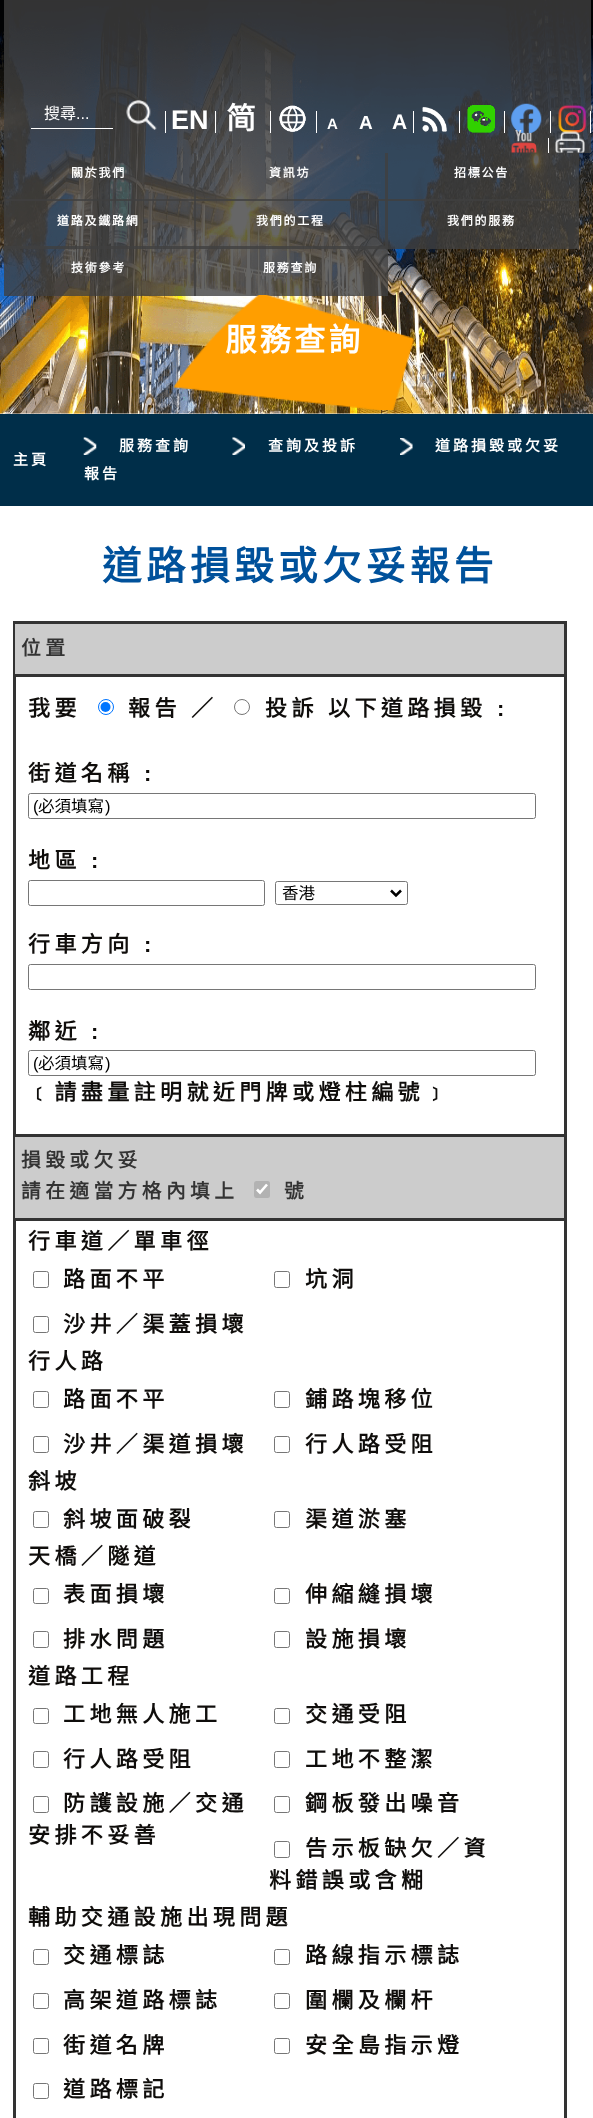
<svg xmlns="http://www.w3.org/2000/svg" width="593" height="2118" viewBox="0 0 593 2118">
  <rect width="100%" height="100%" fill="#ffffff"/>
  <image x="0" y="0" width="593" height="414" href="img1.png"/>
  <rect x="4" y="0" width="587" height="153" fill="#404040" fill-opacity="0.8"/>
  <rect x="31" y="128" width="82" height="1" fill="#ffffff"/>
  <text x="44" y="119" font-family="Noto Sans CJK HK" font-size="16" fill="#ffffff">搜尋</text>
  <text x="76" y="119" font-family="Liberation Sans" font-size="16" fill="#ffffff">...</text>
  <image x="126" y="100" width="31" height="30" href="img2.png"/>
  <rect x="165" y="111" width="1" height="22" fill="#ffffff"/>
  <text x="171" y="129" font-family="Liberation Sans" font-size="27" font-weight="bold" fill="#ffffff">EN</text>
  <rect x="215" y="111" width="1" height="22" fill="#ffffff"/>
  <text x="226" y="129" font-family="Noto Sans CJK HK" font-size="30" font-weight="bold" fill="#ffffff">简</text>
  <rect x="270" y="111" width="1" height="22" fill="#ffffff"/>
  <image x="279" y="105" width="27" height="27" href="img3.png"/>
  <rect x="316" y="111" width="1" height="22" fill="#ffffff"/>
  <text x="327" y="129" font-family="Liberation Sans" font-size="15" font-weight="bold" letter-spacing="-7" fill="#ffffff">A</text>
  <text x="359" y="129" font-family="Liberation Sans" font-size="19" font-weight="bold" letter-spacing="-7" fill="#ffffff">A</text>
  <text x="392" y="129" font-family="Liberation Sans" font-size="21" font-weight="bold" letter-spacing="-7" fill="#ffffff">A</text>
  <rect x="413" y="111" width="1" height="22" fill="#ffffff"/>
  <image x="422" y="106" width="25" height="26" href="img4.png"/>
  <rect x="459" y="111" width="1" height="22" fill="#ffffff"/>
  <image x="467" y="105" width="28" height="28" href="img5.png"/>
  <rect x="504" y="111" width="1" height="22" fill="#ffffff"/>
  <image x="511" y="103" width="31" height="31" href="img6.png"/>
  <rect x="550" y="111" width="1" height="22" fill="#ffffff"/>
  <image x="558" y="104" width="29" height="29" href="img7.png"/>
  <rect x="590" y="111" width="1" height="22" fill="#ffffff"/>
  <image x="511" y="130" width="26" height="23" href="img8.png"/>
  <rect x="548" y="138" width="1" height="15" fill="#ffffff"/>
  <image x="555" y="131" width="30" height="22" href="img9.png"/>
  <rect x="4" y="153" width="192" height="48" fill="#404040" fill-opacity="0.8"/>
  <text x="71" y="177" font-family="Noto Sans CJK HK" font-size="12" font-weight="bold" letter-spacing="1.75" fill="#ffffff">關於我們</text>
  <rect x="194" y="153" width="194" height="48" fill="#404040" fill-opacity="0.8"/>
  <text x="269" y="177" font-family="Noto Sans CJK HK" font-size="12" font-weight="bold" letter-spacing="1.75" fill="#ffffff">資訊坊</text>
  <rect x="385" y="153" width="194" height="48" fill="#404040" fill-opacity="0.8"/>
  <text x="454" y="177" font-family="Noto Sans CJK HK" font-size="12" font-weight="bold" letter-spacing="1.75" fill="#ffffff">招標公告</text>
  <rect x="4" y="199" width="192" height="50" fill="#404040" fill-opacity="0.8"/>
  <text x="57" y="225" font-family="Noto Sans CJK HK" font-size="12" font-weight="bold" letter-spacing="1.75" fill="#ffffff">道路及鐵路網</text>
  <rect x="194" y="199" width="194" height="50" fill="#404040" fill-opacity="0.8"/>
  <text x="256" y="225" font-family="Noto Sans CJK HK" font-size="12" font-weight="bold" letter-spacing="1.75" fill="#ffffff">我們的工程</text>
  <rect x="385" y="199" width="194" height="50" fill="#404040" fill-opacity="0.8"/>
  <text x="447" y="225" font-family="Noto Sans CJK HK" font-size="12" font-weight="bold" letter-spacing="1.75" fill="#ffffff">我們的服務</text>
  <rect x="4" y="246" width="192" height="50" fill="#404040" fill-opacity="0.8"/>
  <text x="71" y="272" font-family="Noto Sans CJK HK" font-size="12" font-weight="bold" letter-spacing="1.75" fill="#ffffff">技術參考</text>
  <rect x="194" y="246" width="194" height="50" fill="#404040" fill-opacity="0.8"/>
  <text x="263" y="272" font-family="Noto Sans CJK HK" font-size="12" font-weight="bold" letter-spacing="1.75" fill="#ffffff">服務查詢</text>
  <rect x="0" y="414" width="593" height="92" fill="#002e49"/>
  <image x="173" y="295" width="241" height="115" href="img10.png"/>
  <text x="225" y="351" font-family="Noto Sans CJK HK" font-size="31.5" font-weight="bold" letter-spacing="3" fill="#ffffff">服務查詢</text>
  <text x="13" y="465" font-family="Noto Sans CJK HK" font-size="15" font-weight="bold" letter-spacing="3" fill="#ffffff">主頁</text>
  <image x="83" y="437" width="14" height="18" href="img11.png"/>
  <text x="119" y="451" font-family="Noto Sans CJK HK" font-size="15" font-weight="bold" letter-spacing="3" fill="#ffffff">服務查詢</text>
  <image x="232" y="437" width="13" height="18" href="img12.png"/>
  <text x="268" y="451" font-family="Noto Sans CJK HK" font-size="15" font-weight="bold" letter-spacing="3" fill="#ffffff">查詢及投訴</text>
  <image x="400" y="438" width="13" height="17" href="img13.png"/>
  <text x="435" y="451" font-family="Noto Sans CJK HK" font-size="15" font-weight="bold" letter-spacing="3" fill="#ffffff">道路損毀或欠妥</text>
  <text x="84" y="479" font-family="Noto Sans CJK HK" font-size="15" font-weight="bold" letter-spacing="3" fill="#ffffff">報告</text>
  <text x="102" y="580" font-family="Noto Sans CJK HK" font-size="39.6" font-weight="bold" letter-spacing="4.4" fill="#00519b">道路損毀或欠妥報告</text>
  <rect x="564" y="621" width="3" height="1497" fill="#333333"/>
  <rect x="13" y="621" width="3" height="1497" fill="#333333"/>
  <rect x="15" y="624" width="549" height="50" fill="#cccccc"/>
  <rect x="15" y="621" width="549" height="3" fill="#333333"/>
  <rect x="15" y="674" width="549" height="3" fill="#333333"/>
  <text x="21" y="655" font-family="Noto Sans CJK HK" font-size="19.75" font-weight="bold" letter-spacing="4.4" fill="#333333">位置</text>
  <text x="28" y="716" font-family="Noto Sans CJK HK" font-size="22" font-weight="bold" letter-spacing="4.4" fill="#0f0d0b">我要</text>
  <circle cx="106" cy="707" r="7.5" fill="none" stroke="#0075ff"/>
  <circle cx="105.5" cy="707" r="5" fill="#0075ff"/>
  <text x="128" y="716" font-family="Noto Sans CJK HK" font-size="22" font-weight="bold" letter-spacing="4.4" fill="#0f0d0b">報告</text>
  <text x="191" y="716" font-family="Noto Sans CJK HK" font-size="22" font-weight="bold" letter-spacing="4.4" fill="#0f0d0b">／</text>
  <circle cx="242" cy="707" r="7.5" fill="none" stroke="#767676"/>
  <text x="265" y="716" font-family="Noto Sans CJK HK" font-size="22" font-weight="bold" letter-spacing="4.4" fill="#0f0d0b">投訴</text>
  <text x="328" y="716" font-family="Noto Sans CJK HK" font-size="22" font-weight="bold" letter-spacing="4.4" fill="#0f0d0b">以下道路損毀</text>
  <text x="497" y="716" font-family="Liberation Sans" font-size="22" font-weight="bold" letter-spacing="4.4" fill="#0f0d0b">:</text>
  <text x="28" y="781" font-family="Noto Sans CJK HK" font-size="22" font-weight="bold" letter-spacing="4.4" fill="#0f0d0b">街道名稱</text>
  <text x="144" y="781" font-family="Liberation Sans" font-size="22" font-weight="bold" letter-spacing="4.4" fill="#0f0d0b">:</text>
  <rect x="28.5" y="793.5" width="507" height="25" rx="2" fill="none" stroke="#767676"/>
  <text x="33" y="812" font-family="Liberation Sans" font-size="16.5" fill="#000000">(</text>
  <text x="38" y="812" font-family="Noto Sans CJK HK" font-size="16.5" fill="#000000">必須填寫</text>
  <text x="105" y="812" font-family="Liberation Sans" font-size="16.5" fill="#000000">)</text>
  <text x="28" y="868" font-family="Noto Sans CJK HK" font-size="22" font-weight="bold" letter-spacing="4.4" fill="#0f0d0b">地區</text>
  <text x="91" y="868" font-family="Liberation Sans" font-size="22" font-weight="bold" letter-spacing="4.4" fill="#0f0d0b">:</text>
  <rect x="28.5" y="880.5" width="236" height="25" rx="2" fill="none" stroke="#767676"/>
  <rect x="275.5" y="881.5" width="132" height="23" rx="2" fill="none" stroke="#767676"/>
  <path d="M391 890.5L396 895.5L401 890.5" fill="none" stroke="#000000" stroke-width="2.5"/>
  <text x="282" y="899" font-family="Noto Sans CJK HK" font-size="16.5" fill="#000000">香港</text>
  <text x="28" y="952" font-family="Noto Sans CJK HK" font-size="22" font-weight="bold" letter-spacing="4.4" fill="#0f0d0b">行車方向</text>
  <text x="144" y="952" font-family="Liberation Sans" font-size="22" font-weight="bold" letter-spacing="4.4" fill="#0f0d0b">:</text>
  <rect x="28.5" y="964.5" width="507" height="25" rx="2" fill="none" stroke="#767676"/>
  <text x="28" y="1039" font-family="Noto Sans CJK HK" font-size="22" font-weight="bold" letter-spacing="4.4" fill="#0f0d0b">鄰近</text>
  <text x="91" y="1039" font-family="Liberation Sans" font-size="22" font-weight="bold" letter-spacing="4.4" fill="#0f0d0b">:</text>
  <rect x="28.5" y="1050.5" width="507" height="25" rx="2" fill="none" stroke="#767676"/>
  <text x="33" y="1069" font-family="Liberation Sans" font-size="16.5" fill="#000000">(</text>
  <text x="38" y="1069" font-family="Noto Sans CJK HK" font-size="16.5" fill="#000000">必須填寫</text>
  <text x="105" y="1069" font-family="Liberation Sans" font-size="16.5" fill="#000000">)</text>
  <text x="28" y="1100" font-family="Noto Sans CJK HK" font-size="22" font-weight="bold" letter-spacing="4.4" fill="#0f0d0b">﹝請盡量註明就近門牌或燈柱編號﹞</text>
  <rect x="15" y="1137" width="549" height="81" fill="#cccccc"/>
  <rect x="15" y="1134" width="549" height="3" fill="#333333"/>
  <rect x="15" y="1218" width="549" height="3" fill="#333333"/>
  <text x="21" y="1167" font-family="Noto Sans CJK HK" font-size="19.75" font-weight="bold" letter-spacing="4.4" fill="#333333">損毀或欠妥</text>
  <text x="21" y="1198" font-family="Noto Sans CJK HK" font-size="19.75" font-weight="bold" letter-spacing="4.4" fill="#333333">請在適當方格內填上</text>
  <rect x="254" y="1181" width="16" height="17" rx="2.5" fill="#b2b2b2"/>
  <path d="M257 1189.5L260 1192.5L267 1184.5" fill="none" stroke="#ffffff" stroke-width="2.6"/>
  <text x="284" y="1198" font-family="Noto Sans CJK HK" font-size="19.75" font-weight="bold" letter-spacing="4.4" fill="#333333">號</text>
  <text x="28" y="1249" font-family="Noto Sans CJK HK" font-size="22" font-weight="bold" letter-spacing="4.4" fill="#0f0d0b">行車道／單車徑</text>
  <rect x="33.5" y="1271.5" width="15" height="16" rx="2" fill="none" stroke="#767676"/>
  <text x="63" y="1287" font-family="Noto Sans CJK HK" font-size="22" font-weight="bold" letter-spacing="4.4" fill="#0f0d0b">路面不平</text>
  <rect x="274.5" y="1271.5" width="15" height="16" rx="2" fill="none" stroke="#767676"/>
  <text x="305" y="1287" font-family="Noto Sans CJK HK" font-size="22" font-weight="bold" letter-spacing="4.4" fill="#0f0d0b">坑洞</text>
  <rect x="33.5" y="1316.5" width="15" height="16" rx="2" fill="none" stroke="#767676"/>
  <text x="63" y="1332" font-family="Noto Sans CJK HK" font-size="22" font-weight="bold" letter-spacing="4.4" fill="#0f0d0b">沙井／渠蓋損壞</text>
  <text x="28" y="1369" font-family="Noto Sans CJK HK" font-size="22" font-weight="bold" letter-spacing="4.4" fill="#0f0d0b">行人路</text>
  <rect x="33.5" y="1391.5" width="15" height="16" rx="2" fill="none" stroke="#767676"/>
  <text x="63" y="1407" font-family="Noto Sans CJK HK" font-size="22" font-weight="bold" letter-spacing="4.4" fill="#0f0d0b">路面不平</text>
  <rect x="274.5" y="1391.5" width="15" height="16" rx="2" fill="none" stroke="#767676"/>
  <text x="305" y="1407" font-family="Noto Sans CJK HK" font-size="22" font-weight="bold" letter-spacing="4.4" fill="#0f0d0b">鋪路塊移位</text>
  <rect x="33.5" y="1436.5" width="15" height="16" rx="2" fill="none" stroke="#767676"/>
  <text x="63" y="1452" font-family="Noto Sans CJK HK" font-size="22" font-weight="bold" letter-spacing="4.4" fill="#0f0d0b">沙井／渠道損壞</text>
  <rect x="274.5" y="1436.5" width="15" height="16" rx="2" fill="none" stroke="#767676"/>
  <text x="305" y="1452" font-family="Noto Sans CJK HK" font-size="22" font-weight="bold" letter-spacing="4.4" fill="#0f0d0b">行人路受阻</text>
  <text x="28" y="1489" font-family="Noto Sans CJK HK" font-size="22" font-weight="bold" letter-spacing="4.4" fill="#0f0d0b">斜坡</text>
  <rect x="33.5" y="1511.5" width="15" height="16" rx="2" fill="none" stroke="#767676"/>
  <text x="63" y="1527" font-family="Noto Sans CJK HK" font-size="22" font-weight="bold" letter-spacing="4.4" fill="#0f0d0b">斜坡面破裂</text>
  <rect x="274.5" y="1511.5" width="15" height="16" rx="2" fill="none" stroke="#767676"/>
  <text x="305" y="1527" font-family="Noto Sans CJK HK" font-size="22" font-weight="bold" letter-spacing="4.4" fill="#0f0d0b">渠道淤塞</text>
  <text x="28" y="1564" font-family="Noto Sans CJK HK" font-size="22" font-weight="bold" letter-spacing="4.4" fill="#0f0d0b">天橋／隧道</text>
  <rect x="33.5" y="1588.5" width="15" height="15" rx="2" fill="none" stroke="#767676"/>
  <text x="63" y="1602" font-family="Noto Sans CJK HK" font-size="22" font-weight="bold" letter-spacing="4.4" fill="#0f0d0b">表面損壞</text>
  <rect x="274.5" y="1588.5" width="15" height="15" rx="2" fill="none" stroke="#767676"/>
  <text x="305" y="1602" font-family="Noto Sans CJK HK" font-size="22" font-weight="bold" letter-spacing="4.4" fill="#0f0d0b">伸縮縫損壞</text>
  <rect x="33.5" y="1631.5" width="15" height="16" rx="2" fill="none" stroke="#767676"/>
  <text x="63" y="1647" font-family="Noto Sans CJK HK" font-size="22" font-weight="bold" letter-spacing="4.4" fill="#0f0d0b">排水問題</text>
  <rect x="274.5" y="1631.5" width="15" height="16" rx="2" fill="none" stroke="#767676"/>
  <text x="305" y="1647" font-family="Noto Sans CJK HK" font-size="22" font-weight="bold" letter-spacing="4.4" fill="#0f0d0b">設施損壞</text>
  <text x="28" y="1684" font-family="Noto Sans CJK HK" font-size="22" font-weight="bold" letter-spacing="4.4" fill="#0f0d0b">道路工程</text>
  <rect x="33.5" y="1708.5" width="15" height="15" rx="2" fill="none" stroke="#767676"/>
  <text x="63" y="1722" font-family="Noto Sans CJK HK" font-size="22" font-weight="bold" letter-spacing="4.4" fill="#0f0d0b">工地無人施工</text>
  <rect x="274.5" y="1708.5" width="15" height="15" rx="2" fill="none" stroke="#767676"/>
  <text x="305" y="1722" font-family="Noto Sans CJK HK" font-size="22" font-weight="bold" letter-spacing="4.4" fill="#0f0d0b">交通受阻</text>
  <rect x="33.5" y="1751.5" width="15" height="16" rx="2" fill="none" stroke="#767676"/>
  <text x="63" y="1767" font-family="Noto Sans CJK HK" font-size="22" font-weight="bold" letter-spacing="4.4" fill="#0f0d0b">行人路受阻</text>
  <rect x="274.5" y="1751.5" width="15" height="16" rx="2" fill="none" stroke="#767676"/>
  <text x="305" y="1767" font-family="Noto Sans CJK HK" font-size="22" font-weight="bold" letter-spacing="4.4" fill="#0f0d0b">工地不整潔</text>
  <rect x="33.5" y="1796.5" width="15" height="16" rx="2" fill="none" stroke="#767676"/>
  <text x="63" y="1811" font-family="Noto Sans CJK HK" font-size="22" font-weight="bold" letter-spacing="4.4" fill="#0f0d0b">防護設施／交通</text>
  <text x="28" y="1843" font-family="Noto Sans CJK HK" font-size="22" font-weight="bold" letter-spacing="4.4" fill="#0f0d0b">安排不妥善</text>
  <rect x="274.5" y="1796.5" width="15" height="16" rx="2" fill="none" stroke="#767676"/>
  <text x="305" y="1811" font-family="Noto Sans CJK HK" font-size="22" font-weight="bold" letter-spacing="4.4" fill="#0f0d0b">鋼板發出噪音</text>
  <rect x="274.5" y="1841.5" width="15" height="16" rx="2" fill="none" stroke="#767676"/>
  <text x="305" y="1856" font-family="Noto Sans CJK HK" font-size="22" font-weight="bold" letter-spacing="4.4" fill="#0f0d0b">告示板缺欠／資</text>
  <text x="269" y="1888" font-family="Noto Sans CJK HK" font-size="22" font-weight="bold" letter-spacing="4.4" fill="#0f0d0b">料錯誤或含糊</text>
  <text x="28" y="1925" font-family="Noto Sans CJK HK" font-size="22" font-weight="bold" letter-spacing="4.4" fill="#0f0d0b">輔助交通設施出現問題</text>
  <rect x="33.5" y="1949.5" width="15" height="15" rx="2" fill="none" stroke="#767676"/>
  <text x="63" y="1963" font-family="Noto Sans CJK HK" font-size="22" font-weight="bold" letter-spacing="4.4" fill="#0f0d0b">交通標誌</text>
  <rect x="274.5" y="1949.5" width="15" height="15" rx="2" fill="none" stroke="#767676"/>
  <text x="305" y="1963" font-family="Noto Sans CJK HK" font-size="22" font-weight="bold" letter-spacing="4.4" fill="#0f0d0b">路線指示標誌</text>
  <rect x="33.5" y="1993.5" width="15" height="15" rx="2" fill="none" stroke="#767676"/>
  <text x="63" y="2008" font-family="Noto Sans CJK HK" font-size="22" font-weight="bold" letter-spacing="4.4" fill="#0f0d0b">高架道路標誌</text>
  <rect x="274.5" y="1993.5" width="15" height="15" rx="2" fill="none" stroke="#767676"/>
  <text x="305" y="2008" font-family="Noto Sans CJK HK" font-size="22" font-weight="bold" letter-spacing="4.4" fill="#0f0d0b">圍欄及欄杆</text>
  <rect x="33.5" y="2038.5" width="15" height="15" rx="2" fill="none" stroke="#767676"/>
  <text x="63" y="2053" font-family="Noto Sans CJK HK" font-size="22" font-weight="bold" letter-spacing="4.4" fill="#0f0d0b">街道名牌</text>
  <rect x="274.5" y="2038.5" width="15" height="15" rx="2" fill="none" stroke="#767676"/>
  <text x="305" y="2053" font-family="Noto Sans CJK HK" font-size="22" font-weight="bold" letter-spacing="4.4" fill="#0f0d0b">安全島指示燈</text>
  <rect x="33.5" y="2083.5" width="15" height="15" rx="2" fill="none" stroke="#767676"/>
  <text x="63" y="2097" font-family="Noto Sans CJK HK" font-size="22" font-weight="bold" letter-spacing="4.4" fill="#0f0d0b">道路標記</text>
</svg>
